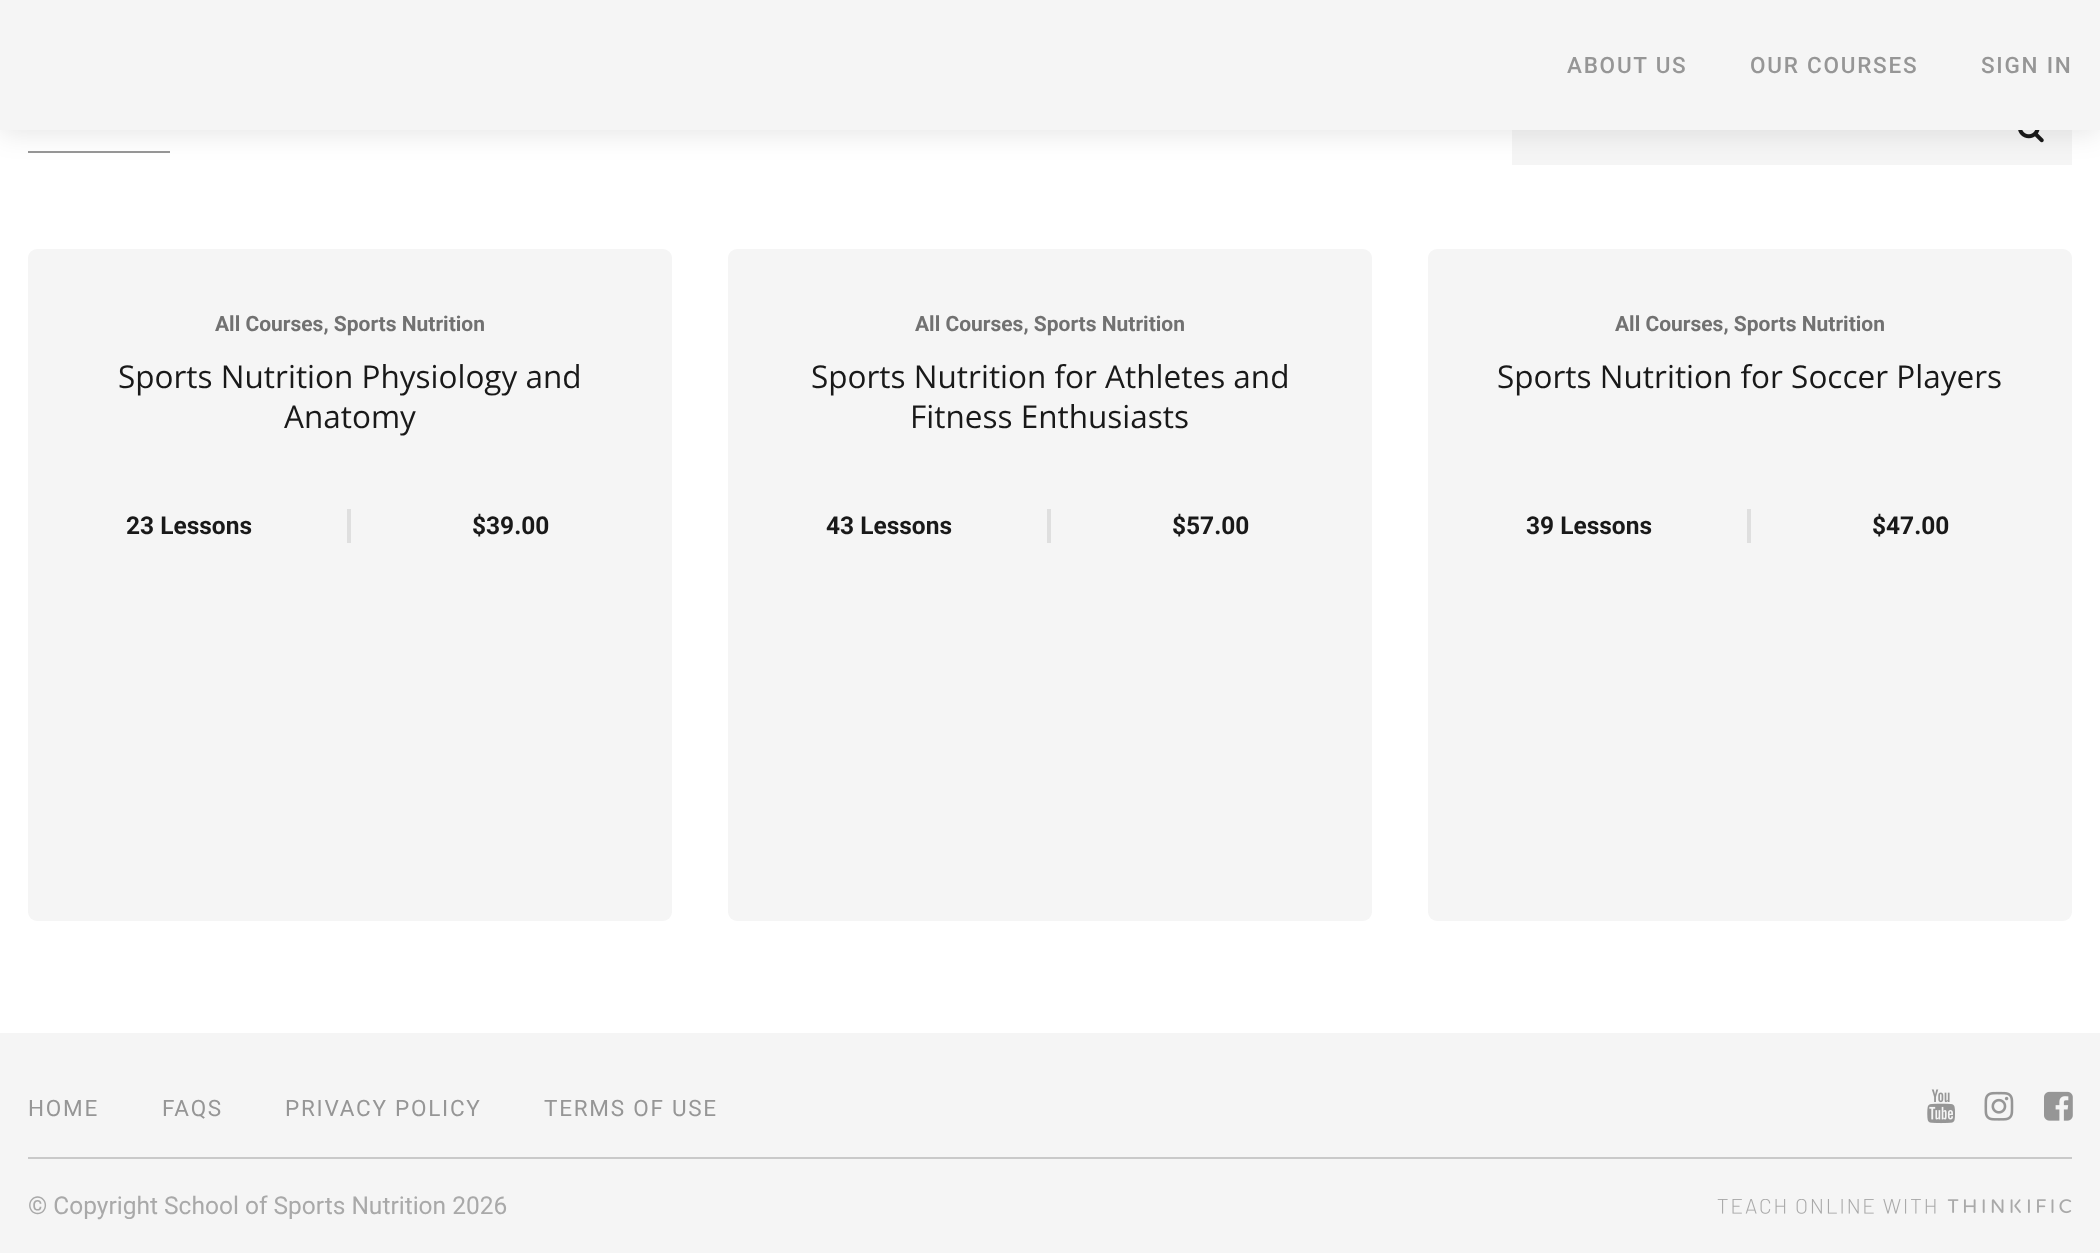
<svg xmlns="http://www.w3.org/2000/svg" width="2100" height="1253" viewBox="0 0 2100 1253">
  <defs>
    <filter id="blur1" x="-50%" y="-200%" width="200%" height="500%"><feGaussianBlur stdDeviation="14"/></filter>
  </defs>
  <rect width="100%" height="100%" fill="#ffffff"/>
  <rect x="28" y="151" width="142" height="2" fill="#969696"/>
  <rect x="1512" y="130" width="560" height="35" fill="#f5f5f5"/>
  <image x="2018" y="130" width="26" height="13" href="img1.png"/>
  <rect x="0" y="4" width="2100" height="129" fill="#000000" fill-opacity="0.1" filter="url(#blur1)"/>
  <rect x="0" y="0" width="2100" height="130" fill="#f5f5f5"/>
  <text x="1567" y="73" font-family="Roboto" font-size="22.5" font-weight="500" letter-spacing="1.75" fill="#969696">ABOUT US</text>
  <text x="1750" y="73" font-family="Roboto" font-size="22.5" font-weight="500" letter-spacing="1.75" fill="#969696">OUR COURSES</text>
  <text x="1981" y="73" font-family="Roboto" font-size="22.5" font-weight="500" letter-spacing="1.75" fill="#969696">SIGN IN</text>
  <rect x="28" y="249" width="644" height="672" rx="9" fill="#f5f5f5"/>
  <text x="215" y="331" font-family="Roboto" font-size="21" font-weight="bold" fill="#717171">All Courses, Sports Nutrition</text>
  <text x="118" y="388" font-family="Open Sans" font-size="31.5" fill="#191919">Sports Nutrition Physiology and</text>
  <text x="284" y="428" font-family="Open Sans" font-size="31.5" fill="#191919">Anatomy</text>
  <text x="126" y="534" font-family="Roboto" font-size="24.5" font-weight="bold" fill="#191919">23 Lessons</text>
  <rect x="347" y="509" width="4" height="34" fill="#dfdfdf"/>
  <text x="472" y="534" font-family="Roboto" font-size="24.5" font-weight="bold" fill="#191919">$39.00</text>
  <rect x="728" y="249" width="644" height="672" rx="9" fill="#f5f5f5"/>
  <text x="915" y="331" font-family="Roboto" font-size="21" font-weight="bold" fill="#717171">All Courses, Sports Nutrition</text>
  <text x="811" y="388" font-family="Open Sans" font-size="31.5" fill="#191919">Sports Nutrition for Athletes and</text>
  <text x="910" y="428" font-family="Open Sans" font-size="31.5" fill="#191919">Fitness Enthusiasts</text>
  <text x="826" y="534" font-family="Roboto" font-size="24.5" font-weight="bold" fill="#191919">43 Lessons</text>
  <rect x="1047" y="509" width="4" height="34" fill="#dfdfdf"/>
  <text x="1172" y="534" font-family="Roboto" font-size="24.5" font-weight="bold" fill="#191919">$57.00</text>
  <rect x="1428" y="249" width="644" height="672" rx="9" fill="#f5f5f5"/>
  <text x="1615" y="331" font-family="Roboto" font-size="21" font-weight="bold" fill="#717171">All Courses, Sports Nutrition</text>
  <text x="1497" y="388" font-family="Open Sans" font-size="31.5" fill="#191919">Sports Nutrition for Soccer Players</text>
  <text x="1526" y="534" font-family="Roboto" font-size="24.5" font-weight="bold" fill="#191919">39 Lessons</text>
  <rect x="1747" y="509" width="4" height="34" fill="#dfdfdf"/>
  <text x="1872" y="534" font-family="Roboto" font-size="24.5" font-weight="bold" fill="#191919">$47.00</text>
  <rect x="0" y="1033" width="2100" height="220" fill="#f5f5f5"/>
  <text x="28" y="1116" font-family="Roboto" font-size="22.5" letter-spacing="1.75" fill="#969696">HOME</text>
  <text x="162" y="1116" font-family="Roboto" font-size="22.5" letter-spacing="1.75" fill="#969696">FAQS</text>
  <text x="285" y="1116" font-family="Roboto" font-size="22.5" letter-spacing="1.75" fill="#969696">PRIVACY POLICY</text>
  <text x="544" y="1116" font-family="Roboto" font-size="22.5" letter-spacing="1.75" fill="#969696">TERMS OF USE</text>
  <image x="1927" y="1089" width="28" height="35" href="img2.png"/>
  <image x="1984" y="1091" width="30" height="30" href="img3.png"/>
  <image x="2044" y="1091" width="29" height="30" href="img4.png"/>
  <rect x="28" y="1157" width="2044" height="2" fill="#c9c9c9"/>
  <text x="28" y="1214" font-family="Roboto" font-size="24.5" fill="#a9a9a9">© Copyright School of Sports Nutrition 2026</text>
  <image x="1717" y="1199" width="355" height="15" href="img5.png"/>
</svg>
